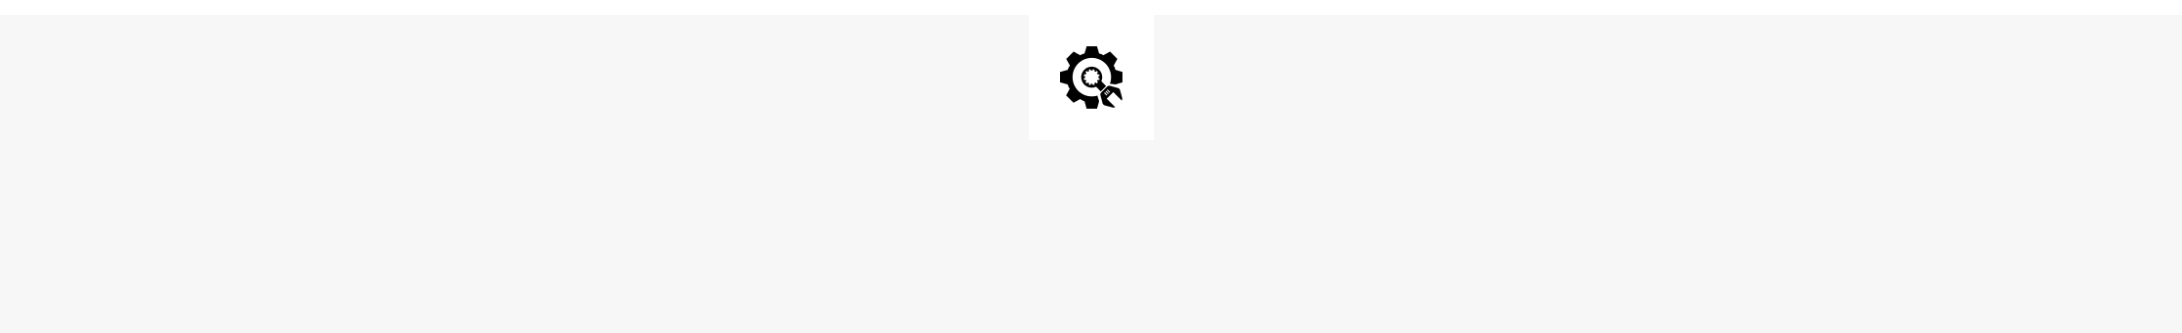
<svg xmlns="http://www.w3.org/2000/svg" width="2182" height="333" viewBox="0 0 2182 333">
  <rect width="100%" height="100%" fill="#f7f7f7"/>
  <rect x="0" y="0" width="2182" height="15" fill="#ffffff"/>
  <rect x="1029" y="15" width="125" height="125" fill="#ffffff"/>
  <image x="1060" y="46" width="63" height="63" href="img1.png"/>
</svg>
